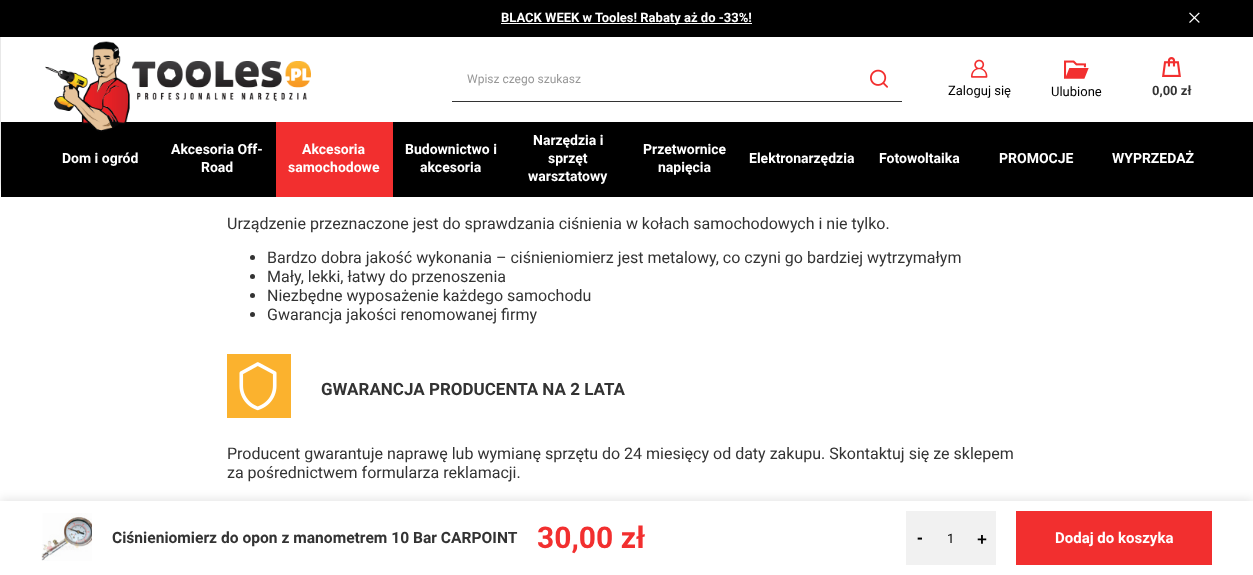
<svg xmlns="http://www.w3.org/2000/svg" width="1253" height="575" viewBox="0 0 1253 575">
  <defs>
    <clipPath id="clip1"><rect x="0" y="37" width="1" height="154"/></clipPath>
    <filter id="blur1" x="-50%" y="-200%" width="200%" height="500%"><feGaussianBlur stdDeviation="5"/></filter>
  </defs>
  <rect width="100%" height="100%" fill="#ffffff"/>
  <g clip-path="url(#clip1)">
    <rect x="1" y="0" width="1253" height="187" fill="#000000" fill-opacity="0.2" filter="url(#blur1)"/>
  </g>
  <rect x="0" y="0" width="1253" height="37" fill="#000000"/>
  <rect x="501" y="23" width="251" height="1" fill="#ffffff"/>
  <text x="501" y="22" font-family="Roboto" font-size="13" font-weight="bold" fill="#ffffff">BLACK WEEK w Tooles! Rabaty aż do -33%!</text>
  <image x="1189" y="12" width="11" height="11" href="img1.png"/>
  <rect x="1" y="122" width="1252" height="75" fill="#000000"/>
  <rect x="276" y="122" width="117" height="75" fill="#f22f2f"/>
  <image x="45" y="41" width="266" height="91" href="img2.png"/>
  <rect x="452" y="101" width="450" height="1" fill="#333333"/>
  <text x="467" y="83" font-family="Roboto" font-size="12" fill="#989898">Wpisz czego szukasz</text>
  <image x="870" y="69" width="18" height="19" href="img3.png"/>
  <image x="971" y="59" width="17" height="19" href="img4.png"/>
  <text x="948" y="95" font-family="Roboto" font-size="13" fill="#000000">Zaloguj się</text>
  <image x="1064" y="60" width="25" height="19" href="img5.png"/>
  <text x="1051" y="96" font-family="Roboto" font-size="13" fill="#000000">Ulubione</text>
  <image x="1162" y="57" width="19" height="20" href="img6.png"/>
  <text x="1152" y="95" font-family="Roboto" font-size="13" font-weight="bold" fill="#333333">0,00 zł</text>
  <text x="62" y="163" font-family="Roboto" font-size="14" font-weight="bold" fill="#ffffff">Dom i ogród</text>
  <text x="171" y="154" font-family="Roboto" font-size="14" font-weight="bold" fill="#ffffff">Akcesoria Off-</text>
  <text x="201" y="172" font-family="Roboto" font-size="14" font-weight="bold" fill="#ffffff">Road</text>
  <text x="302" y="154" font-family="Roboto" font-size="14" font-weight="bold" fill="#ffffff">Akcesoria</text>
  <text x="288" y="172" font-family="Roboto" font-size="14" font-weight="bold" fill="#ffffff">samochodowe</text>
  <text x="405" y="154" font-family="Roboto" font-size="14" font-weight="bold" fill="#ffffff">Budownictwo i</text>
  <text x="420" y="172" font-family="Roboto" font-size="14" font-weight="bold" fill="#ffffff">akcesoria</text>
  <text x="533" y="145" font-family="Roboto" font-size="14" font-weight="bold" fill="#ffffff">Narzędzia i</text>
  <text x="548" y="163" font-family="Roboto" font-size="14" font-weight="bold" fill="#ffffff">sprzęt</text>
  <text x="528" y="181" font-family="Roboto" font-size="14" font-weight="bold" fill="#ffffff">warsztatowy</text>
  <text x="643" y="154" font-family="Roboto" font-size="14" font-weight="bold" fill="#ffffff">Przetwornice</text>
  <text x="658" y="172" font-family="Roboto" font-size="14" font-weight="bold" fill="#ffffff">napięcia</text>
  <text x="749" y="163" font-family="Roboto" font-size="14" font-weight="bold" fill="#ffffff">Elektronarzędzia</text>
  <text x="879" y="163" font-family="Roboto" font-size="14" font-weight="bold" fill="#ffffff">Fotowoltaika</text>
  <text x="999" y="163" font-family="Roboto" font-size="14" font-weight="bold" fill="#ffffff">PROMOCJE</text>
  <text x="1112" y="163" font-family="Roboto" font-size="14" font-weight="bold" fill="#ffffff">WYPRZEDAŻ</text>
  <text x="227" y="229" font-family="Roboto" font-size="16" fill="#333333">Urządzenie przeznaczone jest do sprawdzania ciśnienia w kołach samochodowych i nie tylko.</text>
  <circle cx="252.5" cy="257.5" r="2.5" fill="#333333"/>
  <text x="267" y="263" font-family="Roboto" font-size="16" fill="#333333">Bardzo dobra jakość wykonania – ciśnieniomierz jest metalowy, co czyni go bardziej wytrzymałym</text>
  <circle cx="252.5" cy="276.5" r="2.5" fill="#333333"/>
  <text x="267" y="282" font-family="Roboto" font-size="16" fill="#333333">Mały, lekki, łatwy do przenoszenia</text>
  <circle cx="252.5" cy="295.5" r="2.5" fill="#333333"/>
  <text x="267" y="301" font-family="Roboto" font-size="16" fill="#333333">Niezbędne wyposażenie każdego samochodu</text>
  <circle cx="252.5" cy="314.5" r="2.5" fill="#333333"/>
  <text x="267" y="320" font-family="Roboto" font-size="16" fill="#333333">Gwarancja jakości renomowanej firmy</text>
  <rect x="227" y="354" width="64" height="64" fill="#fbb22e"/>
  <image x="239" y="362" width="38" height="49" href="img7.png"/>
  <text x="321" y="395" font-family="Roboto" font-size="17" font-weight="bold" fill="#333333">GWARANCJA PRODUCENTA NA 2 LATA</text>
  <text x="227" y="459" font-family="Roboto" font-size="16" fill="#333333">Producent gwarantuje naprawę lub wymianę sprzętu do 24 miesięcy od daty zakupu. Skontaktuj się ze sklepem</text>
  <text x="227" y="478" font-family="Roboto" font-size="16" fill="#333333">za pośrednictwem formularza reklamacji.</text>
  <rect x="0" y="499" width="1253" height="74" fill="#000000" fill-opacity="0.1" filter="url(#blur1)"/>
  <rect x="0" y="501" width="1253" height="74" fill="#ffffff"/>
  <image x="41" y="513" width="51" height="48" href="img8.png"/>
  <text x="112" y="543" font-family="Roboto" font-size="15.6" font-weight="bold" fill="#333333">Ciśnieniomierz do opon z manometrem 10 Bar CARPOINT</text>
  <text x="537" y="548" font-family="Roboto" font-size="30" font-weight="bold" fill="#f22f2f">30,00 zł</text>
  <rect x="906" y="511" width="90" height="54" fill="#f1f1f1"/>
  <text x="917" y="543" font-family="Liberation Sans" font-size="17" font-weight="bold" fill="#000000">-</text>
  <text x="947" y="543" font-family="Roboto" font-size="13" fill="#000000">1</text>
  <text x="977" y="545" font-family="Liberation Sans" font-size="17" font-weight="bold" fill="#000000">+</text>
  <rect x="1016" y="511" width="196" height="54" fill="#f22f2f"/>
  <text x="1055" y="543" font-family="Roboto" font-size="15" font-weight="bold" fill="#ffffff">Dodaj do koszyka</text>
</svg>
